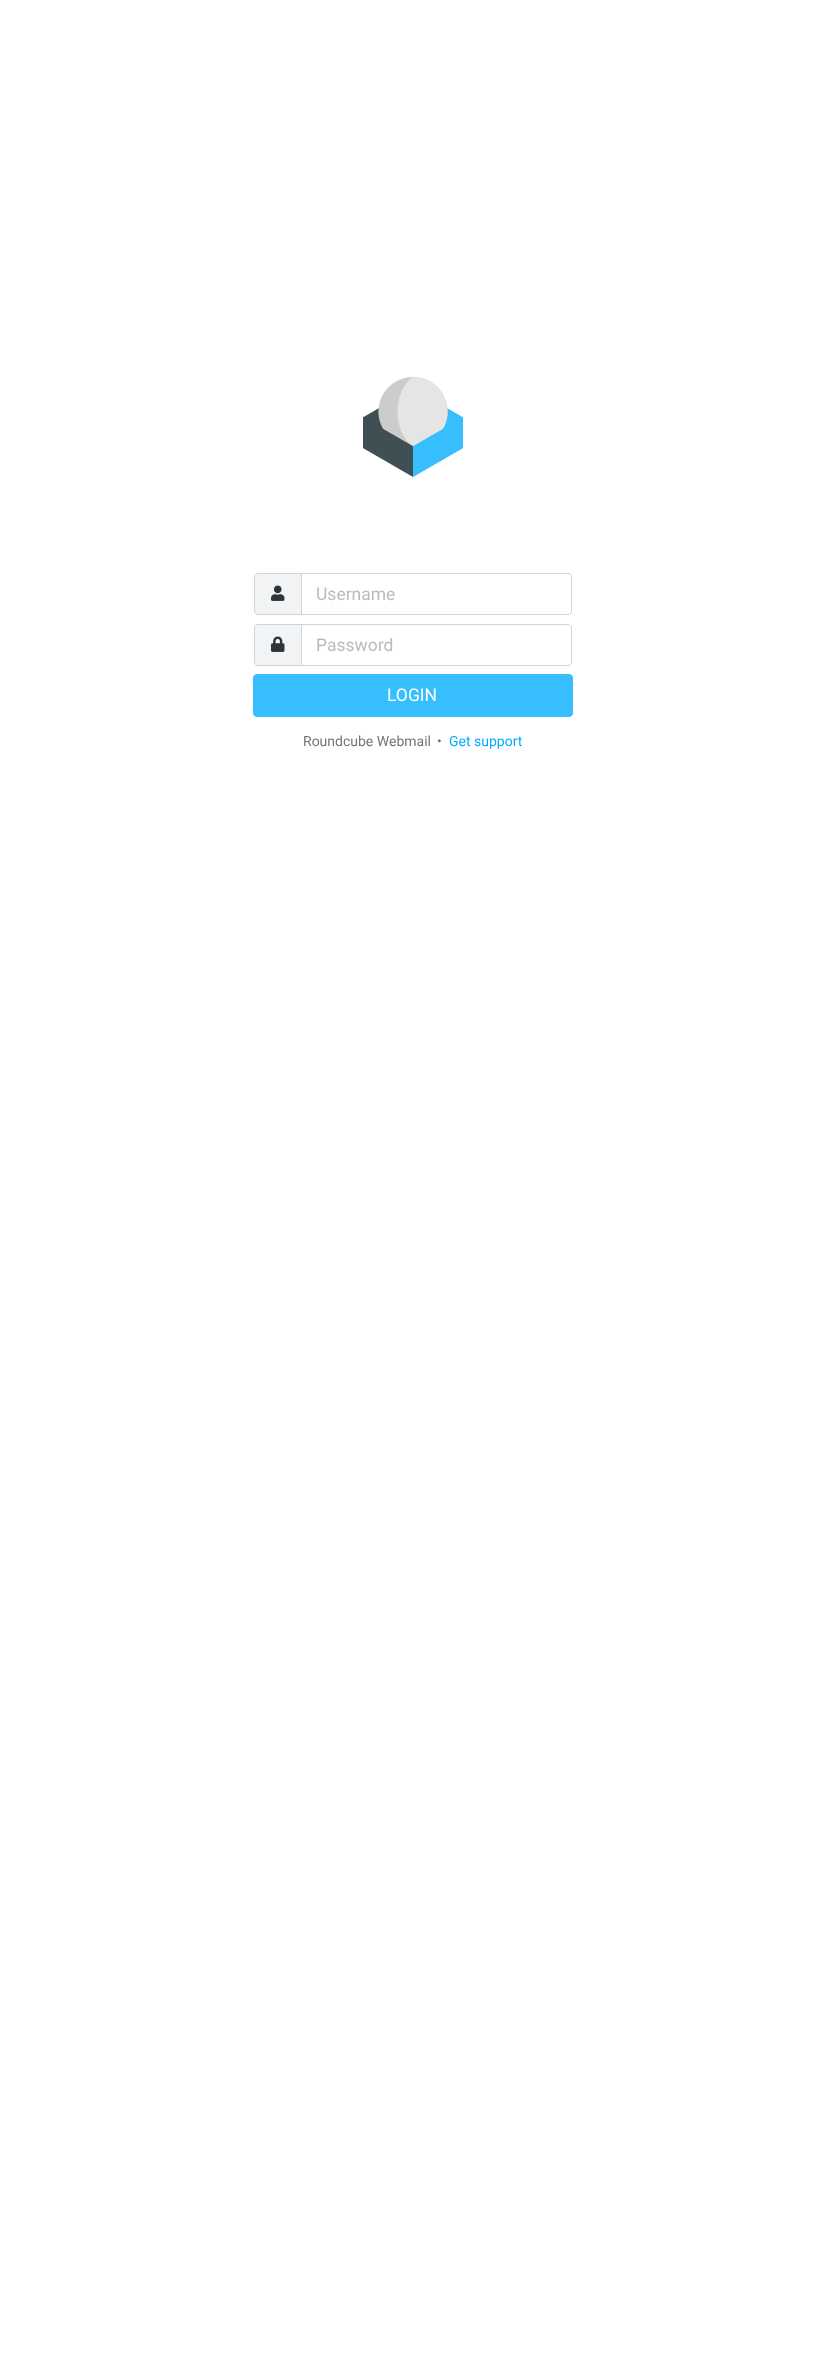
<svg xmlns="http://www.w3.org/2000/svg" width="825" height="2359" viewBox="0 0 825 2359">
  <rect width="100%" height="100%" fill="#ffffff"/>
  <image x="363" y="377" width="100" height="100" href="img1.png"/>
  <path d="M258 573.5H301.5V614.5H258C256 614.5 254.5 613 254.5 611V577C254.5 575 256 573.5 258 573.5Z" fill="#f1f3f4" stroke="#ced4da"/>
  <image x="271" y="585" width="14" height="16" href="img2.png"/>
  <path d="M301.5 573.5H568C570 573.5 571.5 575 571.5 577V611C571.5 613 570 614.5 568 614.5H301.5Z" fill="none" stroke="#ced4da"/>
  <text x="316" y="600" font-family="Roboto" font-size="17.5" fill="#bbbbbb">Username</text>
  <path d="M258 624.5H301.5V665.5H258C256 665.5 254.5 664 254.5 662V628C254.5 626 256 624.5 258 624.5Z" fill="#f1f3f4" stroke="#ced4da"/>
  <image x="271" y="636" width="14" height="16" href="img3.png"/>
  <path d="M301.5 624.5H568C570 624.5 571.5 626 571.5 628V662C571.5 664 570 665.5 568 665.5H301.5Z" fill="none" stroke="#ced4da"/>
  <text x="316" y="651" font-family="Roboto" font-size="17.5" fill="#bbbbbb">Password</text>
  <rect x="253.5" y="674.5" width="319" height="42" rx="3.5" fill="#37beff" stroke="#37beff"/>
  <text x="387" y="701" font-family="Roboto" font-size="17.5" fill="#ffffff">LOGIN</text>
  <text x="303" y="746" font-family="Roboto" font-size="14" fill="#737677">Roundcube Webmail</text>
  <text x="437" y="746" font-family="Roboto" font-size="14" fill="#737677">•</text>
  <text x="449" y="746" font-family="Roboto" font-size="14" fill="#00acff">Get support</text>
</svg>
